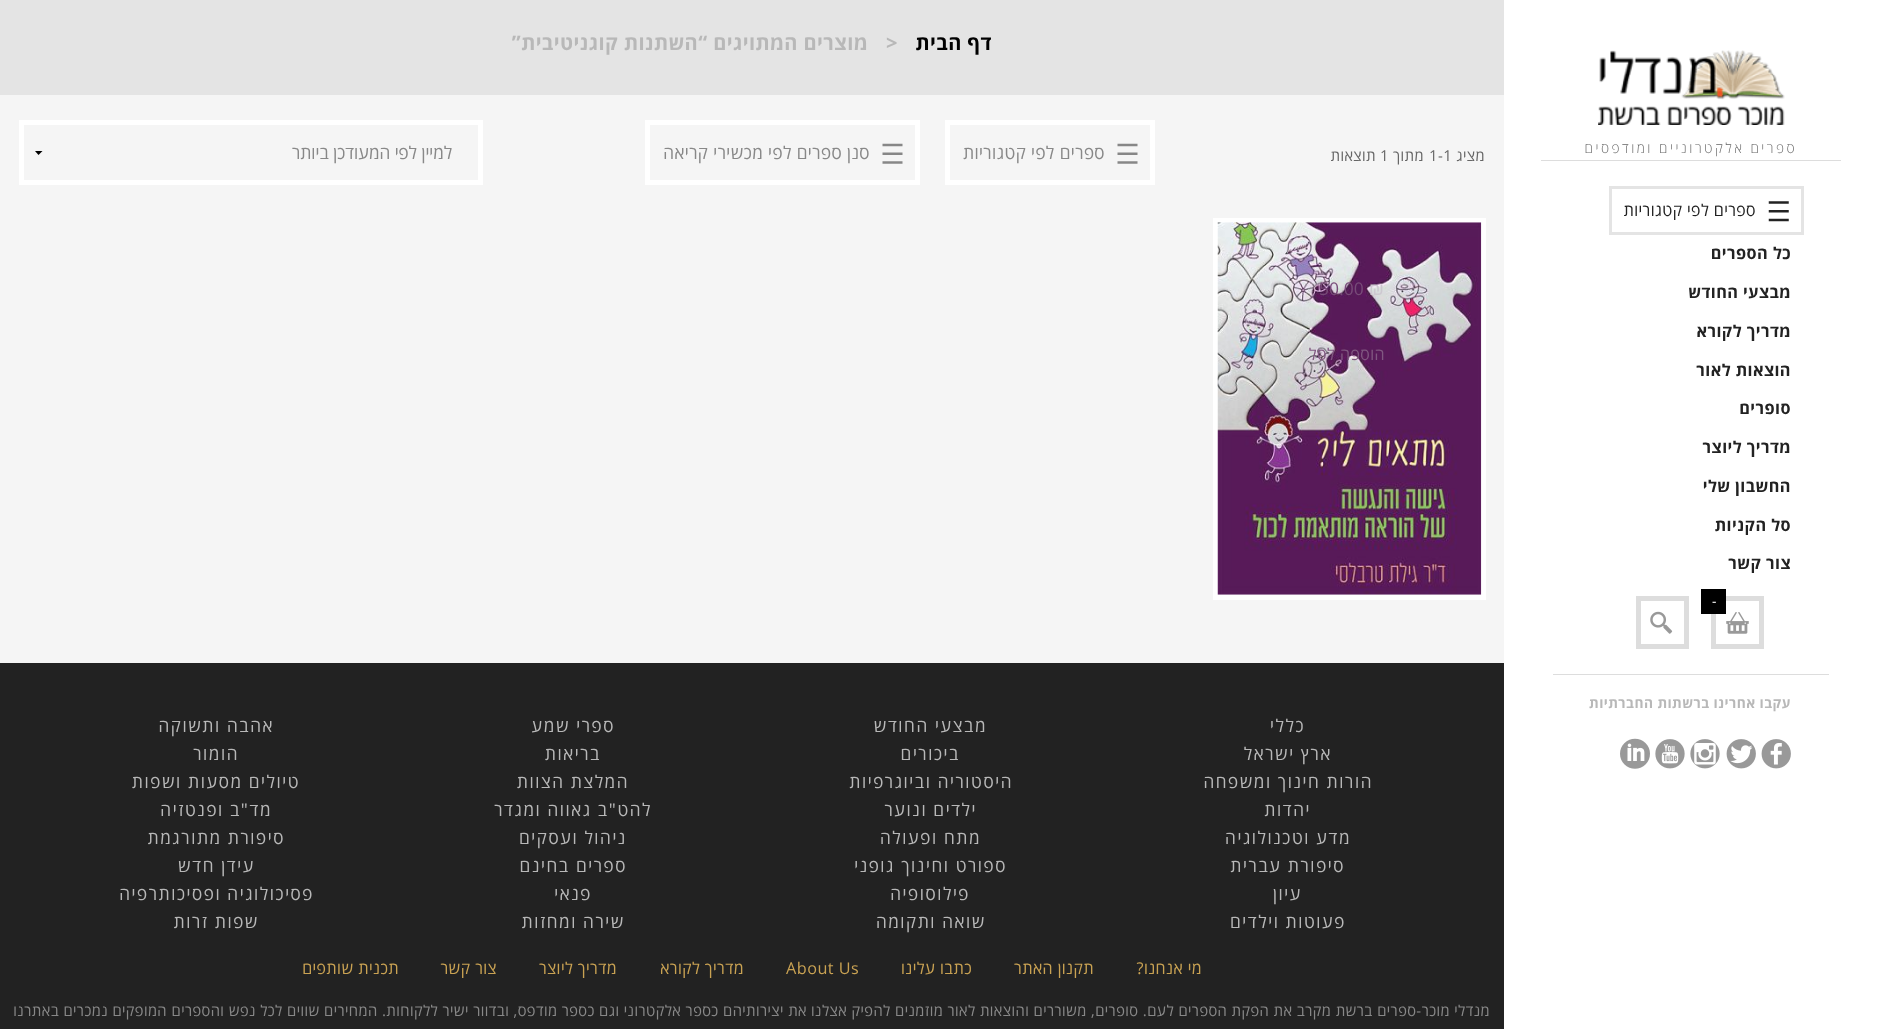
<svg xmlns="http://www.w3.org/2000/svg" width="1878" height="1029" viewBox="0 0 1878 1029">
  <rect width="100%" height="100%" fill="#f5f5f5"/>
  <rect x="1504" y="0" width="374" height="1029" fill="#ffffff"/>
  <rect x="1541" y="160" width="300" height="1" fill="#dddddd"/>
  <image x="1598" y="50" width="187" height="75" href="img1.png"/>
  <text x="1797" y="153" font-family="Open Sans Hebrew" font-size="13.75" font-weight="300" letter-spacing="2.5" direction="rtl" fill="#666666">ספרים אלקטרוניים ומודפסים</text>
  <rect x="1610.5" y="187.5" width="192" height="46" fill="none" stroke="#e4e4e4" stroke-width="3"/>
  <image x="1768" y="201" width="21" height="21" href="img2.png"/>
  <text x="1756" y="216" font-family="Open Sans Hebrew" font-size="16.25" letter-spacing="0.45" direction="rtl" fill="#222222">ספרים לפי קטגוריות</text>
  <text x="1791" y="259" font-family="Open Sans Hebrew" font-size="16.25" font-weight="bold" letter-spacing="0.45" direction="rtl" fill="#222222">כל הספרים</text>
  <text x="1791" y="298" font-family="Open Sans Hebrew" font-size="16.25" font-weight="bold" letter-spacing="0.45" direction="rtl" fill="#222222">מבצעי החודש</text>
  <text x="1791" y="337" font-family="Open Sans Hebrew" font-size="16.25" font-weight="bold" letter-spacing="0.45" direction="rtl" fill="#222222">מדריך לקורא</text>
  <text x="1791" y="376" font-family="Open Sans Hebrew" font-size="16.25" font-weight="bold" letter-spacing="0.45" direction="rtl" fill="#222222">הוצאות לאור</text>
  <text x="1791" y="414" font-family="Open Sans Hebrew" font-size="16.25" font-weight="bold" letter-spacing="0.45" direction="rtl" fill="#222222">סופרים</text>
  <text x="1791" y="453" font-family="Open Sans Hebrew" font-size="16.25" font-weight="bold" letter-spacing="0.45" direction="rtl" fill="#222222">מדריך ליוצר</text>
  <text x="1791" y="492" font-family="Open Sans Hebrew" font-size="16.25" font-weight="bold" letter-spacing="0.45" direction="rtl" fill="#222222">החשבון שלי</text>
  <text x="1791" y="531" font-family="Open Sans Hebrew" font-size="16.25" font-weight="bold" letter-spacing="0.45" direction="rtl" fill="#222222">סל הקניות</text>
  <text x="1791" y="569" font-family="Open Sans Hebrew" font-size="16.25" font-weight="bold" letter-spacing="0.45" direction="rtl" fill="#222222">צור קשר</text>
  <rect x="1553" y="674" width="276" height="1" fill="#dddddd"/>
  <rect x="1713.5" y="598.5" width="48" height="48" fill="none" stroke="#dddddd" stroke-width="5"/>
  <rect x="1701" y="589" width="25" height="25" fill="#000000"/>
  <text x="1712" y="606" font-family="Open Sans Hebrew" font-size="13.75" letter-spacing="0.45" fill="#ffffff">-</text>
  <image x="1726" y="612" width="23" height="22" href="img3.png"/>
  <rect x="1638.5" y="598.5" width="48" height="48" fill="none" stroke="#dddddd" stroke-width="5"/>
  <image x="1650" y="611" width="23" height="23" href="img4.png"/>
  <text x="1791" y="708" font-family="Open Sans Hebrew" font-size="13.75" font-weight="bold" letter-spacing="0.45" direction="rtl" fill="#b8b8b8">עקבו אחרינו ברשתות החברתיות</text>
  <image x="1761" y="739" width="30" height="30" href="img5.png"/>
  <image x="1726" y="739" width="30" height="30" href="img6.png"/>
  <image x="1690" y="739" width="30" height="30" href="img7.png"/>
  <image x="1655" y="739" width="30" height="30" href="img8.png"/>
  <image x="1620" y="738" width="30" height="31" href="img9.png"/>
  <rect x="0" y="0" width="1504" height="95" fill="#e4e4e4"/>
  <text x="992" y="50" font-family="Open Sans Hebrew" font-size="20" font-weight="bold" letter-spacing="0.45" direction="rtl" fill="#000000">דף הבית</text>
  <text x="886" y="50" font-family="Open Sans Hebrew" font-size="20" font-weight="bold" letter-spacing="0.45" fill="#b8b8b8">&gt;</text>
  <text x="868" y="50" font-family="Open Sans Hebrew" font-size="20" font-weight="bold" letter-spacing="0.45" direction="rtl" fill="#b8b8b8">מוצרים המתויגים “השתנות קוגניטיבית”</text>
  <text x="1485" y="161" font-family="Open Sans Hebrew" font-size="15" letter-spacing="0.45" direction="rtl" fill="#666666">מציג</text>
  <text x="1429" y="161" font-family="Open Sans Hebrew" font-size="15" letter-spacing="0.45" fill="#666666">1-1</text>
  <text x="1424" y="161" font-family="Open Sans Hebrew" font-size="15" letter-spacing="0.45" direction="rtl" fill="#666666">מתוך</text>
  <text x="1380" y="161" font-family="Open Sans Hebrew" font-size="15" letter-spacing="0.45" fill="#666666">1</text>
  <text x="1376" y="161" font-family="Open Sans Hebrew" font-size="15" letter-spacing="0.45" direction="rtl" fill="#666666">תוצאות</text>
  <rect x="947.5" y="122.5" width="205" height="60" fill="none" stroke="#ffffff" stroke-width="5"/>
  <image x="1117" y="143" width="21" height="21" href="img10.png"/>
  <text x="1105" y="159" font-family="Open Sans Hebrew" font-size="17.5" letter-spacing="0.45" direction="rtl" fill="#888888">ספרים לפי קטגוריות</text>
  <rect x="647.5" y="122.5" width="270" height="60" fill="none" stroke="#ffffff" stroke-width="5"/>
  <image x="882" y="143" width="21" height="21" href="img10.png"/>
  <text x="870" y="159" font-family="Open Sans Hebrew" font-size="17.5" letter-spacing="0.45" direction="rtl" fill="#888888">סנן ספרים לפי מכשירי קריאה</text>
  <path d="M42.5 151L38.5 155L35 151Z" fill="#000000"/>
  <rect x="21.5" y="122.5" width="459" height="60" fill="none" stroke="#ffffff" stroke-width="5"/>
  <text x="452" y="159" font-family="Open Sans Hebrew" font-size="17.5" direction="rtl" fill="#888888">למיין לפי המעודכן ביותר</text>
  <rect x="1215.5" y="220.5" width="268" height="377" fill="none" stroke="#ffffff" stroke-width="5"/>
  <image x="1217" y="222" width="265" height="373" href="img11.png"/>
  <text x="1369" y="295" font-family="Liberation Sans" font-size="17.5" fill="#cdc8d0">₪</text>
  <text x="1319" y="295" font-family="Open Sans Hebrew" font-size="17.5" fill="#774b78">50.00</text>
  <text x="1385" y="360" font-family="Open Sans Hebrew" font-size="16.25" letter-spacing="0.5" direction="rtl" fill="#805781">הוספה לסל</text>
  <rect x="0" y="663" width="1504" height="366" fill="#222222"/>
  <text x="1305" y="732" font-family="Open Sans Hebrew" font-size="17.5" letter-spacing="1.6" direction="rtl" fill="#b8b8b8">כללי</text>
  <text x="987" y="732" font-family="Open Sans Hebrew" font-size="17.5" letter-spacing="1.6" direction="rtl" fill="#b8b8b8">מבצעי החודש</text>
  <text x="615" y="732" font-family="Open Sans Hebrew" font-size="17.5" letter-spacing="1.6" direction="rtl" fill="#b8b8b8">ספרי שמע</text>
  <text x="274" y="732" font-family="Open Sans Hebrew" font-size="17.5" letter-spacing="1.6" direction="rtl" fill="#b8b8b8">אהבה ותשוקה</text>
  <text x="1332" y="760" font-family="Open Sans Hebrew" font-size="17.5" letter-spacing="1.6" direction="rtl" fill="#b8b8b8">ארץ ישראל</text>
  <text x="960" y="760" font-family="Open Sans Hebrew" font-size="17.5" letter-spacing="1.6" direction="rtl" fill="#b8b8b8">ביכורים</text>
  <text x="601" y="760" font-family="Open Sans Hebrew" font-size="17.5" letter-spacing="1.6" direction="rtl" fill="#b8b8b8">בריאות</text>
  <text x="239" y="760" font-family="Open Sans Hebrew" font-size="17.5" letter-spacing="1.6" direction="rtl" fill="#b8b8b8">הומור</text>
  <text x="1373" y="788" font-family="Open Sans Hebrew" font-size="17.5" letter-spacing="1.6" direction="rtl" fill="#b8b8b8">הורות חינוך ומשפחה</text>
  <text x="1013" y="788" font-family="Open Sans Hebrew" font-size="17.5" letter-spacing="1.6" direction="rtl" fill="#b8b8b8">היסטוריה וביוגרפיות</text>
  <text x="629" y="788" font-family="Open Sans Hebrew" font-size="17.5" letter-spacing="1.6" direction="rtl" fill="#b8b8b8">המלצת הצוות</text>
  <text x="300" y="788" font-family="Open Sans Hebrew" font-size="17.5" letter-spacing="1.6" direction="rtl" fill="#b8b8b8">טיולים מסעות ושפות</text>
  <text x="1311" y="816" font-family="Open Sans Hebrew" font-size="17.5" letter-spacing="1.6" direction="rtl" fill="#b8b8b8">יהדות</text>
  <text x="977" y="816" font-family="Open Sans Hebrew" font-size="17.5" letter-spacing="1.6" direction="rtl" fill="#b8b8b8">ילדים ונוער</text>
  <text x="652" y="816" font-family="Open Sans Hebrew" font-size="17.5" letter-spacing="1.6" direction="rtl" fill="#b8b8b8">להט"ב גאווה ומגדר</text>
  <text x="272" y="816" font-family="Open Sans Hebrew" font-size="17.5" letter-spacing="1.6" direction="rtl" fill="#b8b8b8">מד"ב ופנטזיה</text>
  <text x="1351" y="844" font-family="Open Sans Hebrew" font-size="17.5" letter-spacing="1.6" direction="rtl" fill="#b8b8b8">מדע וטכנולוגיה</text>
  <text x="981" y="844" font-family="Open Sans Hebrew" font-size="17.5" letter-spacing="1.6" direction="rtl" fill="#b8b8b8">מתח ופעולה</text>
  <text x="627" y="844" font-family="Open Sans Hebrew" font-size="17.5" letter-spacing="1.6" direction="rtl" fill="#b8b8b8">ניהול ועסקים</text>
  <text x="285" y="844" font-family="Open Sans Hebrew" font-size="17.5" letter-spacing="1.6" direction="rtl" fill="#b8b8b8">סיפורת מתורגמת</text>
  <text x="1345" y="872" font-family="Open Sans Hebrew" font-size="17.5" letter-spacing="1.6" direction="rtl" fill="#b8b8b8">סיפורת עברית</text>
  <text x="1007" y="872" font-family="Open Sans Hebrew" font-size="17.5" letter-spacing="1.6" direction="rtl" fill="#b8b8b8">ספורט וחינוך גופני</text>
  <text x="627" y="872" font-family="Open Sans Hebrew" font-size="17.5" letter-spacing="1.6" direction="rtl" fill="#b8b8b8">ספרים בחינם</text>
  <text x="255" y="872" font-family="Open Sans Hebrew" font-size="17.5" letter-spacing="1.6" direction="rtl" fill="#b8b8b8">עידן חדש</text>
  <text x="1302" y="900" font-family="Open Sans Hebrew" font-size="17.5" letter-spacing="1.6" direction="rtl" fill="#b8b8b8">עיון</text>
  <text x="970" y="900" font-family="Open Sans Hebrew" font-size="17.5" letter-spacing="1.6" direction="rtl" fill="#b8b8b8">פילוסופיה</text>
  <text x="592" y="900" font-family="Open Sans Hebrew" font-size="17.5" letter-spacing="1.6" direction="rtl" fill="#b8b8b8">פנאי</text>
  <text x="314" y="900" font-family="Open Sans Hebrew" font-size="17.5" letter-spacing="1.6" direction="rtl" fill="#b8b8b8">פסיכולוגיה ופסיכותרפיה</text>
  <text x="1346" y="928" font-family="Open Sans Hebrew" font-size="17.5" letter-spacing="1.6" direction="rtl" fill="#b8b8b8">פעוטות וילדים</text>
  <text x="986" y="928" font-family="Open Sans Hebrew" font-size="17.5" letter-spacing="1.6" direction="rtl" fill="#b8b8b8">שואה ותקומה</text>
  <text x="625" y="928" font-family="Open Sans Hebrew" font-size="17.5" letter-spacing="1.6" direction="rtl" fill="#b8b8b8">שירה ומחזות</text>
  <text x="259" y="928" font-family="Open Sans Hebrew" font-size="17.5" letter-spacing="1.6" direction="rtl" fill="#b8b8b8">שפות זרות</text>
  <text x="1202" y="974" font-family="Open Sans Hebrew" font-size="16.25" letter-spacing="0.45" direction="rtl" fill="#c9a253">מי אנחנו?</text>
  <text x="1094" y="974" font-family="Open Sans Hebrew" font-size="16.25" letter-spacing="0.45" direction="rtl" fill="#c9a253">תקנון האתר</text>
  <text x="972" y="974" font-family="Open Sans Hebrew" font-size="16.25" letter-spacing="0.45" direction="rtl" fill="#c9a253">כתבו עלינו</text>
  <text x="786" y="974" font-family="Open Sans Hebrew" font-size="16.25" letter-spacing="0.45" fill="#c9a253">About Us</text>
  <text x="744" y="974" font-family="Open Sans Hebrew" font-size="16.25" letter-spacing="0.45" direction="rtl" fill="#c9a253">מדריך לקורא</text>
  <text x="617" y="974" font-family="Open Sans Hebrew" font-size="16.25" letter-spacing="0.45" direction="rtl" fill="#c9a253">מדריך ליוצר</text>
  <text x="497" y="974" font-family="Open Sans Hebrew" font-size="16.25" letter-spacing="0.45" direction="rtl" fill="#c9a253">צור קשר</text>
  <text x="399" y="974" font-family="Open Sans Hebrew" font-size="16.25" letter-spacing="0.45" direction="rtl" fill="#c9a253">תכנית שותפים</text>
  <text x="1490" y="1016" font-family="Open Sans Hebrew" font-size="15" letter-spacing="0.45" direction="rtl" fill="#888888">מנדלי מוכר-ספרים ברשת מקרב את הפקת הספרים לעם. סופרים, משוררים והוצאות לאור מוזמנים להפיק אצלנו</text>
  <text x="807" y="1016" font-family="Open Sans Hebrew" font-size="15" letter-spacing="0.45" direction="rtl" fill="#888888">את יצירותיהם כספר אלקטרוני וגם כספר מודפס, ובדוור ישיר ללקוחות. המחירים שווים לכל נפש והספרים</text>
  <text x="167" y="1016" font-family="Open Sans Hebrew" font-size="15" letter-spacing="0.45" direction="rtl" fill="#888888">המופקים נמכרים באתרנו</text>
</svg>
